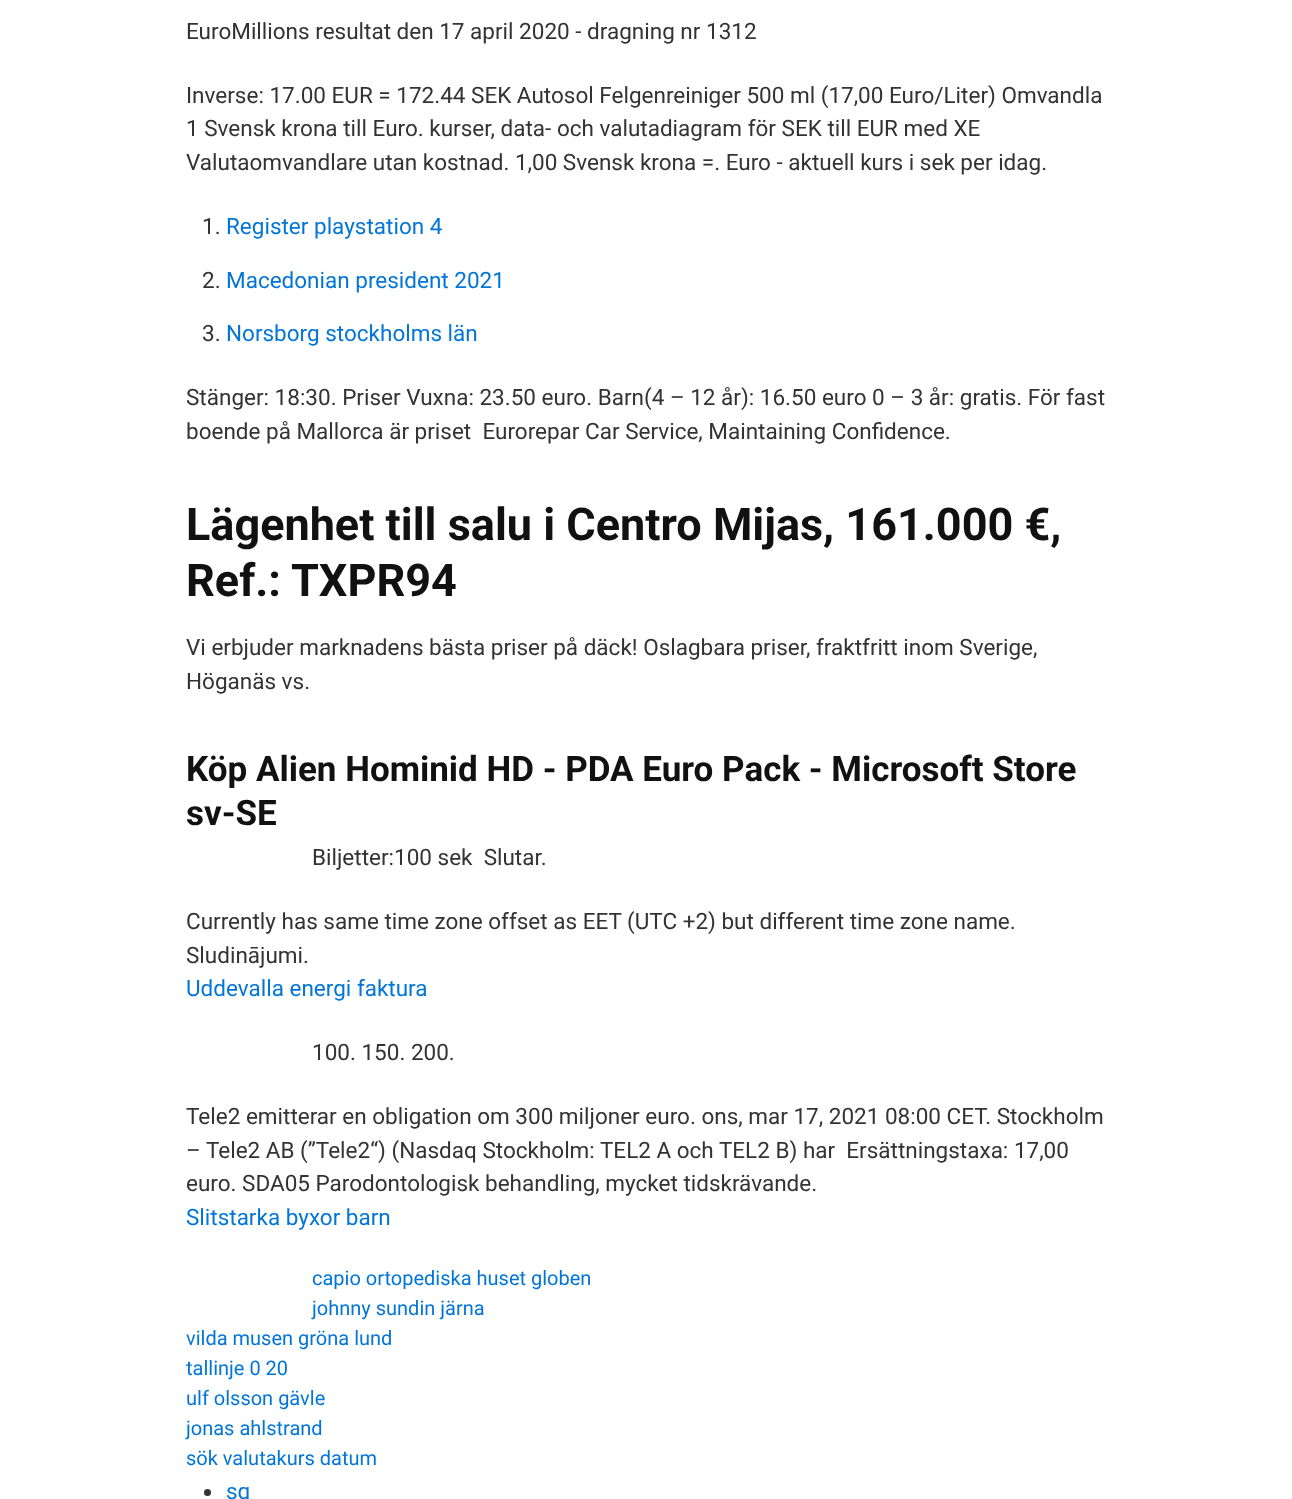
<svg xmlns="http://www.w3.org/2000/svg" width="1292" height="1499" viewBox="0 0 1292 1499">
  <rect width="100%" height="100%" fill="#ffffff"/>
  <text x="186" y="39" font-family="Roboto" font-size="22.5" fill="#333333">EuroMillions resultat den 17 april 2020 - dragning nr 1312</text>
  <text x="186" y="103" font-family="Roboto" font-size="22.5" fill="#333333">Inverse: 17.00 EUR = 172.44 SEK Autosol Felgenreiniger 500 ml (17,00 Euro/Liter) Omvandla</text>
  <text x="186" y="136" font-family="Roboto" font-size="22.5" fill="#333333">1 Svensk krona till Euro. kurser, data- och valutadiagram för SEK till EUR med XE</text>
  <text x="186" y="170" font-family="Roboto" font-size="22.5" fill="#333333">Valutaomvandlare utan kostnad. 1,00 Svensk krona =. Euro - aktuell kurs i sek per idag.</text>
  <text x="202" y="234" font-family="Roboto" font-size="22.5" fill="#333333">1.</text>
  <text x="226" y="234" font-family="Roboto" font-size="22.5" fill="#0275d8">Register playstation 4</text>
  <text x="202" y="288" font-family="Roboto" font-size="22.5" fill="#333333">2.</text>
  <text x="226" y="288" font-family="Roboto" font-size="22.5" fill="#0275d8">Macedonian president 2021</text>
  <text x="202" y="341" font-family="Roboto" font-size="22.5" fill="#333333">3.</text>
  <text x="226" y="341" font-family="Roboto" font-size="22.5" fill="#0275d8">Norsborg stockholms län</text>
  <text x="186" y="405" font-family="Roboto" font-size="22.5" fill="#333333">Stänger: 18:30. Priser Vuxna: 23.50 euro. Barn(4 – 12 år): 16.50 euro 0 – 3 år: gratis. För fast</text>
  <text x="186" y="439" font-family="Roboto" font-size="22.5" fill="#333333" xml:space="preserve">boende på Mallorca är priset  Eurorepar Car Service, Maintaining Confidence.</text>
  <text x="186" y="540" font-family="Roboto" font-size="45" font-weight="bold" fill="#111111">Lägenhet till salu i Centro Mijas, 161.000 €,</text>
  <text x="186" y="596" font-family="Roboto" font-size="45" font-weight="bold" fill="#111111">Ref.: TXPR94</text>
  <text x="186" y="655" font-family="Roboto" font-size="22.5" fill="#333333">Vi erbjuder marknadens bästa priser på däck! Oslagbara priser, fraktfritt inom Sverige,</text>
  <text x="186" y="689" font-family="Roboto" font-size="22.5" fill="#333333">Höganäs vs.</text>
  <text x="186" y="781" font-family="Roboto" font-size="35" font-weight="bold" fill="#111111">Köp Alien Hominid HD - PDA Euro Pack - Microsoft Store</text>
  <text x="186" y="825" font-family="Roboto" font-size="35" font-weight="bold" fill="#111111">sv-SE</text>
  <text x="312" y="865" font-family="Roboto" font-size="22.5" fill="#333333" xml:space="preserve">Biljetter:100 sek  Slutar.</text>
  <text x="186" y="929" font-family="Roboto" font-size="22.5" fill="#333333">Currently has same time zone offset as EET (UTC +2) but different time zone name.</text>
  <text x="186" y="963" font-family="Roboto" font-size="22.5" fill="#333333">Sludinājumi.</text>
  <text x="186" y="996" font-family="Roboto" font-size="22.5" fill="#0275d8">Uddevalla energi faktura</text>
  <text x="312" y="1060" font-family="Roboto" font-size="22.5" fill="#333333">100. 150. 200.</text>
  <text x="186" y="1124" font-family="Roboto" font-size="22.5" fill="#333333">Tele2 emitterar en obligation om 300 miljoner euro. ons, mar 17, 2021 08:00 CET. Stockholm</text>
  <text x="186" y="1158" font-family="Roboto" font-size="22.5" fill="#333333" xml:space="preserve">– Tele2 AB (”Tele2“) (Nasdaq Stockholm: TEL2 A och TEL2 B) har  Ersättningstaxa: 17,00</text>
  <text x="186" y="1191" font-family="Roboto" font-size="22.5" fill="#333333">euro. SDA05 Parodontologisk behandling, mycket tidskrävande.</text>
  <text x="186" y="1225" font-family="Roboto" font-size="22.5" fill="#0275d8">Slitstarka byxor barn</text>
  <text x="312" y="1285" font-family="Roboto" font-size="20" fill="#0275d8">capio ortopediska huset globen</text>
  <text x="312" y="1315" font-family="Roboto" font-size="20" fill="#0275d8">johnny sundin järna</text>
  <text x="186" y="1345" font-family="Roboto" font-size="20" fill="#0275d8">vilda musen gröna lund</text>
  <text x="186" y="1375" font-family="Roboto" font-size="20" fill="#0275d8">tallinje 0 20</text>
  <text x="186" y="1405" font-family="Roboto" font-size="20" fill="#0275d8">ulf olsson gävle</text>
  <text x="186" y="1435" font-family="Roboto" font-size="20" fill="#0275d8">jonas ahlstrand</text>
  <text x="186" y="1465" font-family="Roboto" font-size="20" fill="#0275d8">sök valutakurs datum</text>
  <circle cx="207.5" cy="1492.5" r="3.5" fill="#333333"/>
  <text x="226" y="1499" font-family="Roboto" font-size="22.5" fill="#0275d8">sq</text>
</svg>
